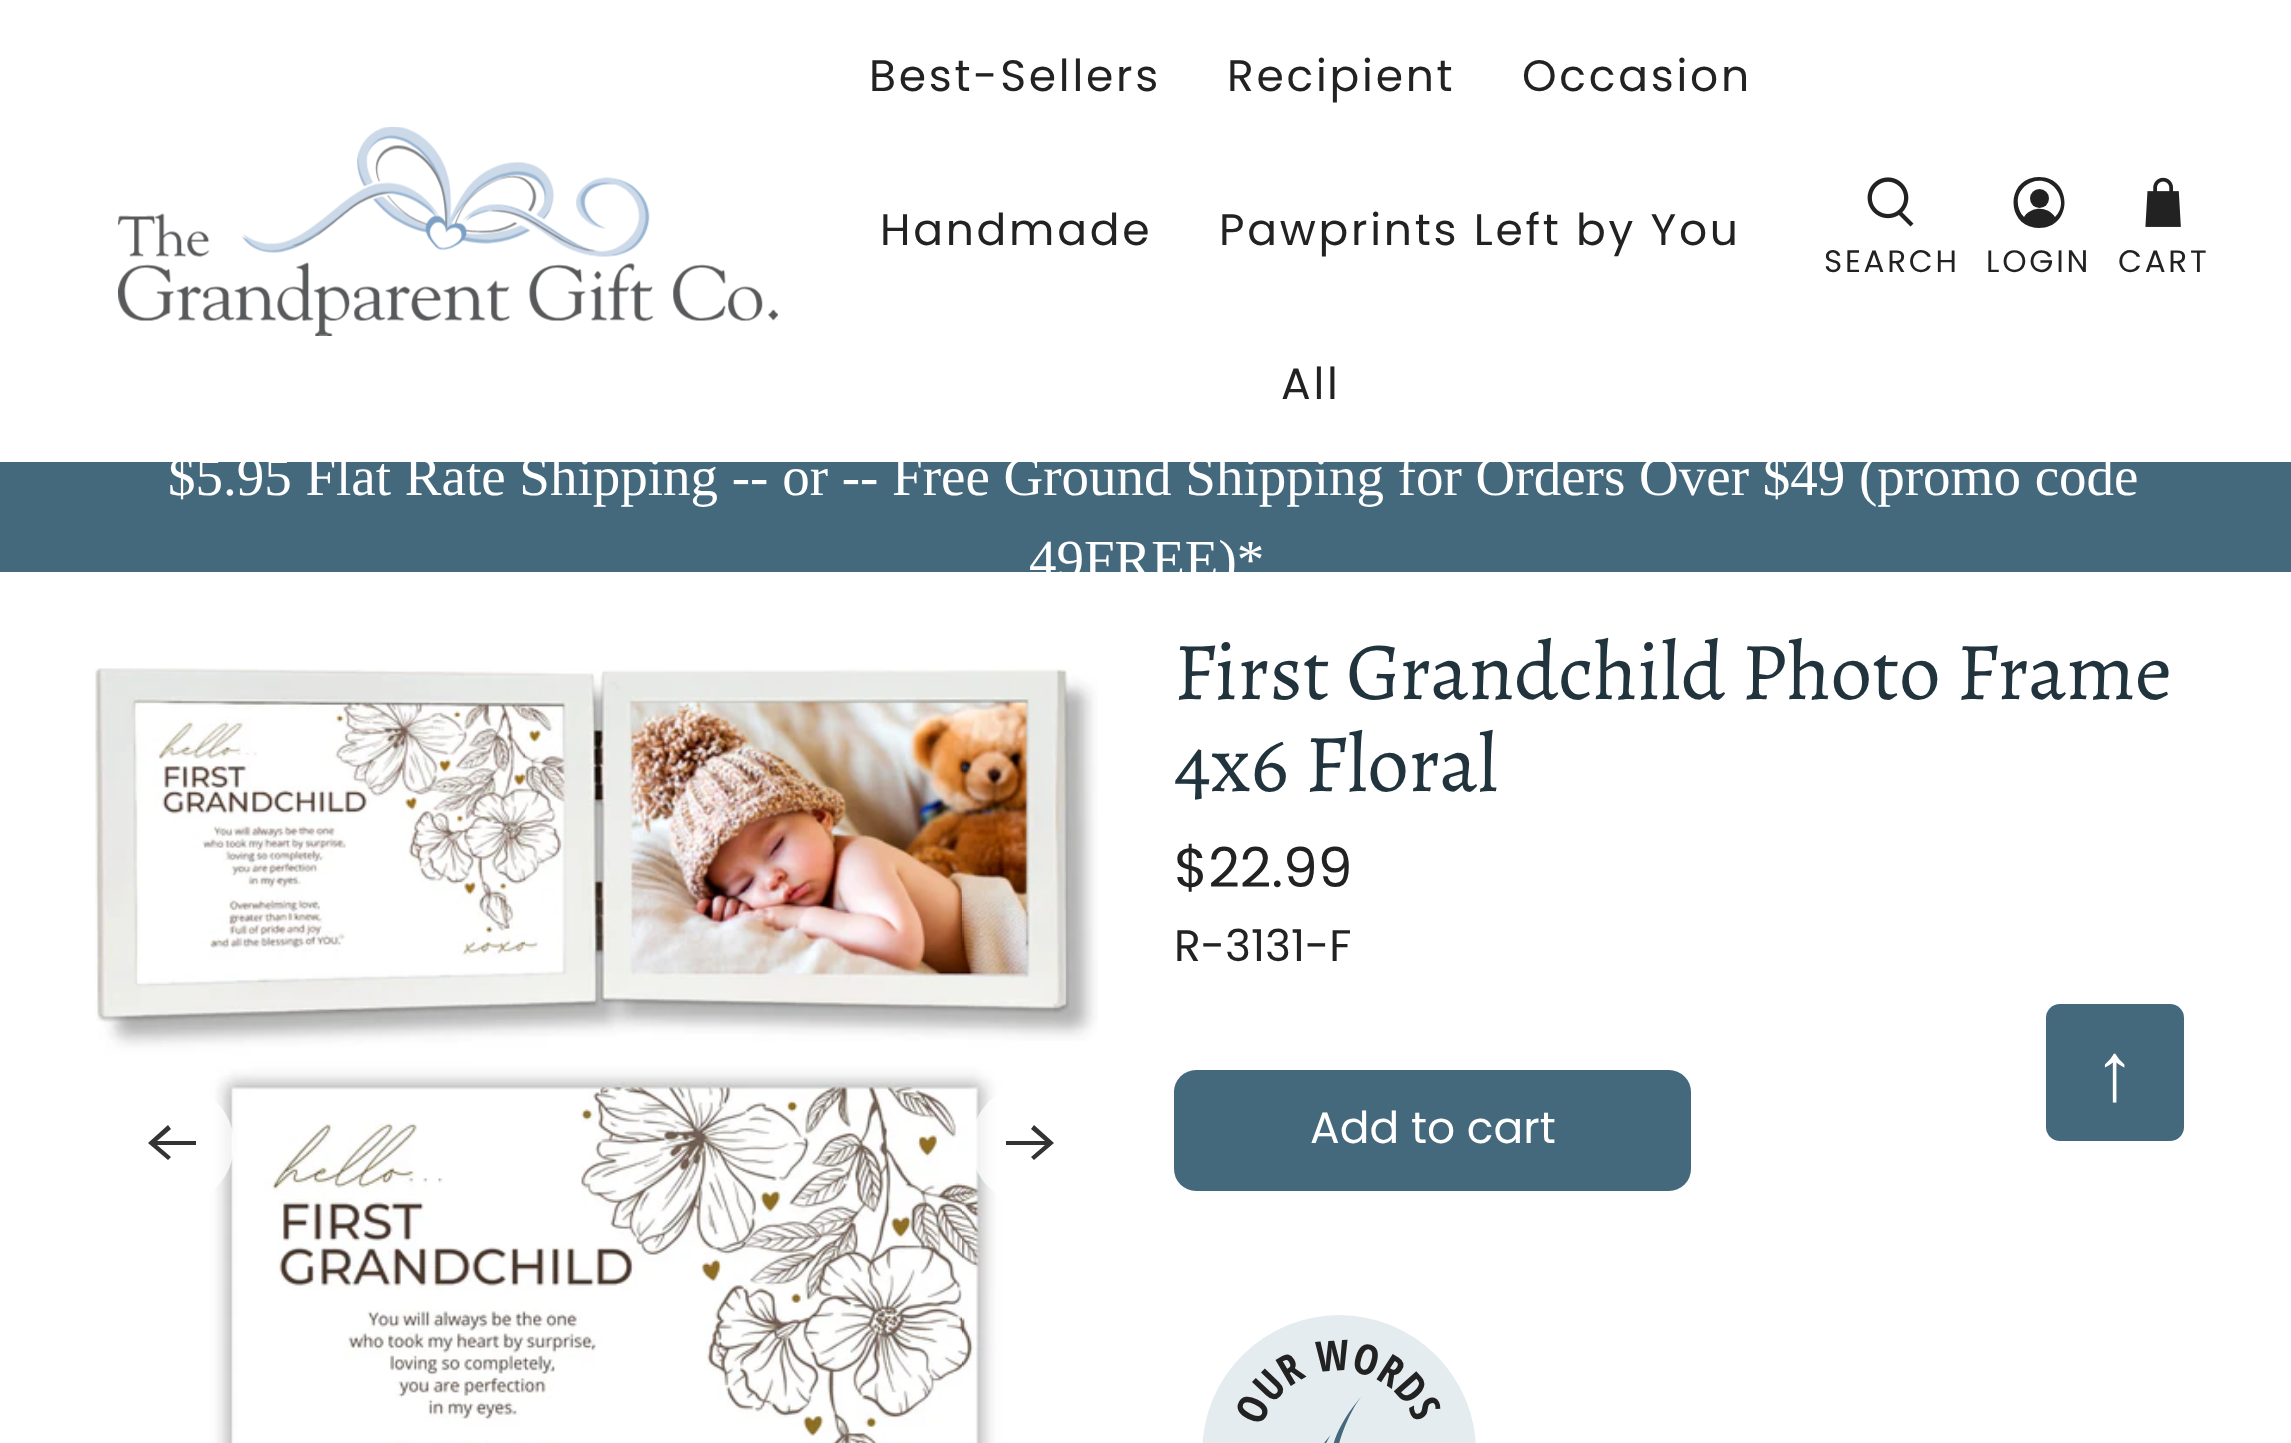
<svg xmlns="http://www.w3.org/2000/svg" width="2291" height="1443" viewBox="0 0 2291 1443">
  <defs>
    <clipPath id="clip1"><rect x="0" y="462" width="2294" height="110"/></clipPath>
  </defs>
  <rect width="100%" height="100%" fill="#ffffff"/>
  <image x="118" y="127" width="660" height="209" href="img1.png"/>
  <text x="869" y="91" font-family="Poppins" font-size="44" letter-spacing="2.75" fill="#222222">Best-Sellers</text>
  <text x="1227" y="91" font-family="Poppins" font-size="44" letter-spacing="2.75" fill="#222222">Recipient</text>
  <text x="1522" y="91" font-family="Poppins" font-size="44" letter-spacing="2.75" fill="#222222">Occasion</text>
  <text x="880" y="245" font-family="Poppins" font-size="44" letter-spacing="2.75" fill="#222222">Handmade</text>
  <text x="1219" y="245" font-family="Poppins" font-size="44" letter-spacing="2.75" fill="#222222">Pawprints Left by You</text>
  <text x="1281" y="399" font-family="Poppins" font-size="44" letter-spacing="2.75" fill="#222222">All</text>
  <image x="1867" y="177" width="47" height="50" href="img2.png"/>
  <text x="1824" y="272" font-family="Poppins" font-size="31" letter-spacing="2.75" fill="#222222">SEARCH</text>
  <circle cx="2039.5" cy="198.5" r="9.5" fill="#222222"/>
  <path d="M2039 177C2005 177 2005 228 2039 228C2073 228 2073 177 2039 177ZM2055 217C2048 206 2031 206 2024 217C2019 212 2017 205 2018 198C2019 192 2023 187 2028 184C2050 171 2072 200 2055 217Z" fill="#222222"/>
  <text x="1986" y="272" font-family="Poppins" font-size="31" letter-spacing="2.75" fill="#222222">LOGIN</text>
  <image x="2145" y="177" width="36" height="50" href="img3.png"/>
  <text x="2118" y="272" font-family="Poppins" font-size="31" letter-spacing="2.75" fill="#222222">CART</text>
  <rect x="0" y="462" width="2291" height="110" fill="#44697d"/>
  <g clip-path="url(#clip1)">
    <text x="168" y="495" font-family="Liberation Serif" font-size="55" fill="#ffffff">$5.95 Flat Rate Shipping -- or -- Free Ground Shipping for Orders Over $49 (promo code</text>
    <text x="1029" y="578" font-family="Liberation Serif" font-size="55" fill="#ffffff">49FREE)*</text>
  </g>
  <image x="95" y="668" width="1003" height="775" href="img4.png"/>
  <circle cx="173.5" cy="1144.5" r="60.5" fill="#ffffff" fill-opacity="0.75"/>
  <path d="M196 1141H157L171 1129L168 1125L148 1143L168 1160L171 1157L157 1145H196Z" fill="#333333"/>
  <circle cx="1031.5" cy="1144.5" r="60.5" fill="#ffffff" fill-opacity="0.75"/>
  <path d="M1006 1145H1045L1031 1157L1034 1160L1054 1143L1034 1125L1031 1129L1045 1141H1006Z" fill="#333333"/>
  <text x="1174" y="699" font-family="Alegreya" font-size="82.5" fill="#21343d">First Grandchild Photo Frame</text>
  <text x="1174" y="791" font-family="Alegreya" font-size="82.5" fill="#21343d">4x6 Floral</text>
  <text x="1174" y="887" font-family="Poppins" font-size="55" fill="#222222">$22.99</text>
  <text x="1174" y="961" font-family="Poppins" font-size="44" fill="#222222">R-3131-F</text>
  <rect x="1174" y="1070" width="517" height="121" rx="22" fill="#44697d"/>
  <text x="1310" y="1143" font-family="Poppins" font-size="44" fill="#ffffff">Add to cart</text>
  <image x="1202" y="1315" width="274" height="128" href="img5.png"/>
  <rect x="2046" y="1004" width="138" height="137" rx="14" fill="#44697d"/>
  <text x="2094" y="1100" font-family="Liberation Sans" font-size="82.5" fill="#ffffff">↑</text>
</svg>
